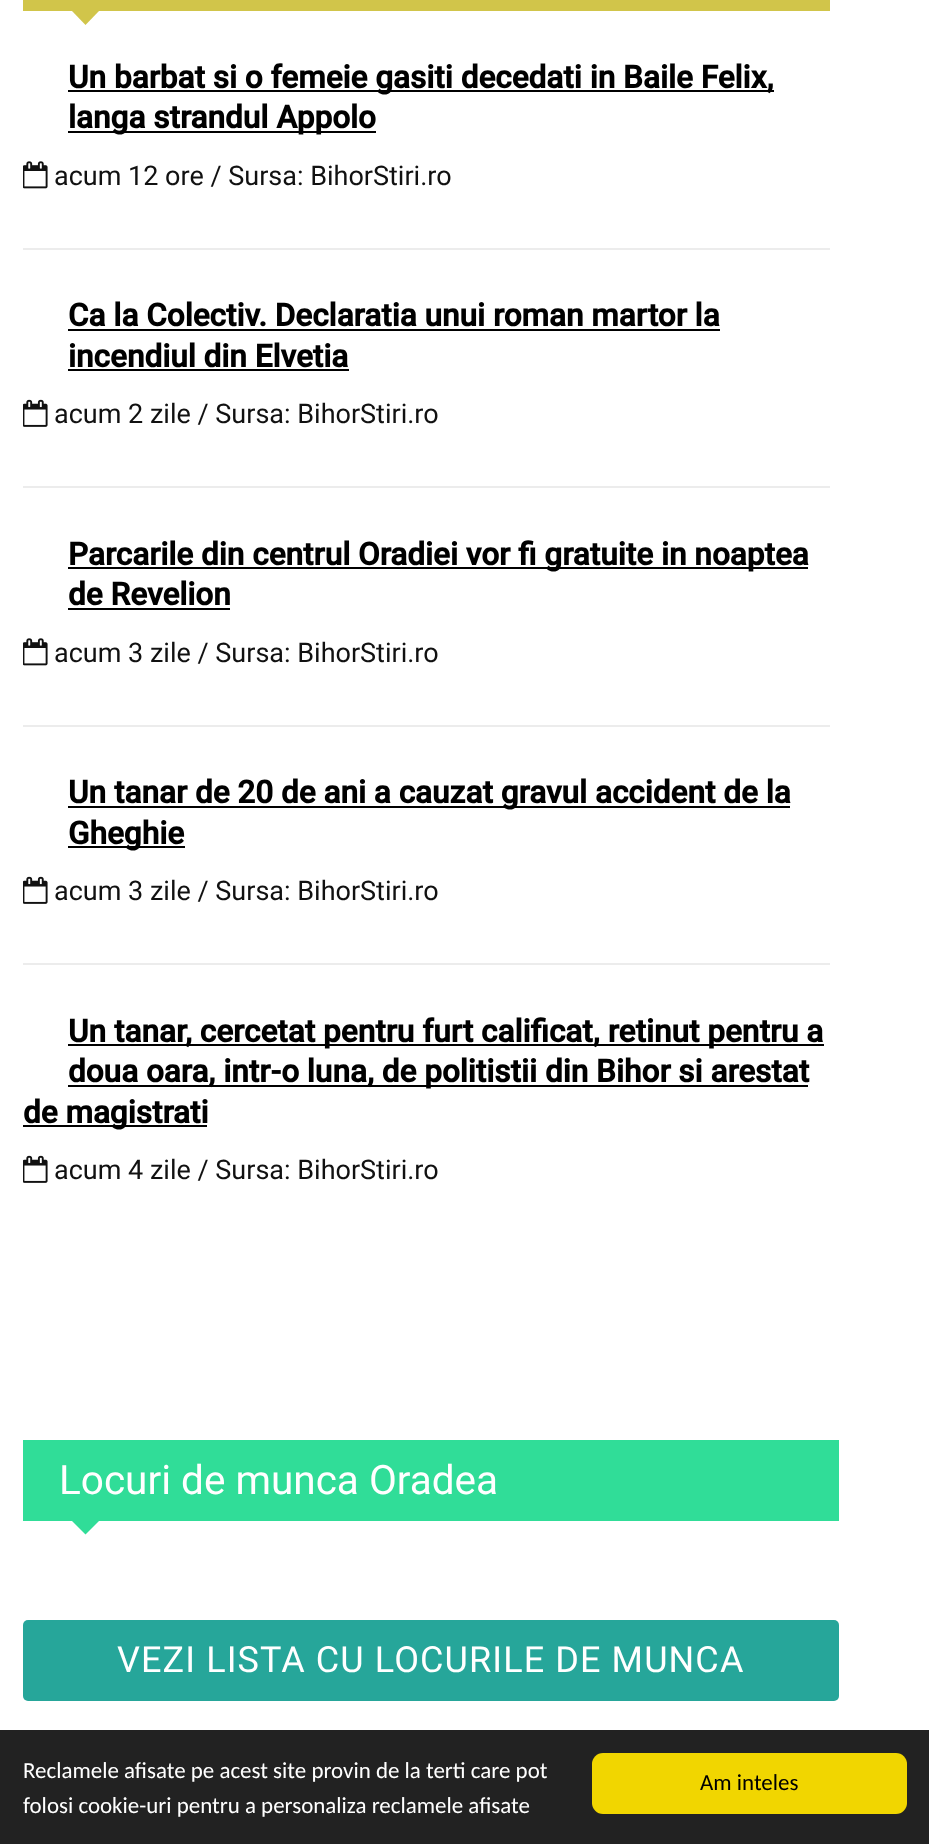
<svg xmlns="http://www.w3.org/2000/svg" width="929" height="1844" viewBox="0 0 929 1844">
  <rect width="100%" height="100%" fill="#ffffff"/>
  <rect x="23" y="0" width="807" height="11" fill="#d1c54a"/>
  <path d="M72 11H99L85.5 25Z" fill="#d1c54a"/>
  <rect x="23" y="248" width="807" height="2" fill="#ececec"/>
  <rect x="68" y="90" width="706" height="2" fill="#000000"/>
  <text x="68" y="88" font-family="Roboto" font-size="31.5" font-weight="bold" fill="#000000">Un barbat si o femeie gasiti decedati in Baile Felix,</text>
  <rect x="68" y="131" width="308" height="2" fill="#000000"/>
  <text x="68" y="128" font-family="Roboto" font-size="31.5" font-weight="bold" fill="#000000">langa strandul Appolo</text>
  <image x="23" y="161" width="25" height="28" href="img1.png"/>
  <text x="54" y="185" font-family="Roboto" font-size="27" fill="#111111">acum 12 ore / Sursa: BihorStiri.ro</text>
  <rect x="23" y="486" width="807" height="2" fill="#ececec"/>
  <text x="68" y="326" font-family="Roboto" font-size="31.5" font-weight="bold" fill="#000000">Ca la Colectiv. Declaratia unui roman martor la</text>
  <rect x="68" y="329" width="652" height="2" fill="#000000"/>
  <text x="68" y="367" font-family="Roboto" font-size="31.5" font-weight="bold" fill="#000000">incendiul din Elvetia</text>
  <rect x="68" y="369" width="281" height="2" fill="#000000"/>
  <image x="23" y="399" width="25" height="28" href="img2.png"/>
  <text x="54" y="423" font-family="Roboto" font-size="27" fill="#111111">acum 2 zile / Sursa: BihorStiri.ro</text>
  <rect x="23" y="725" width="807" height="2" fill="#ececec"/>
  <rect x="68" y="567" width="740" height="2" fill="#000000"/>
  <text x="68" y="565" font-family="Roboto" font-size="31.5" font-weight="bold" fill="#000000">Parcarile din centrul Oradiei vor fi gratuite in noaptea</text>
  <text x="68" y="605" font-family="Roboto" font-size="31.5" font-weight="bold" fill="#000000">de Revelion</text>
  <rect x="68" y="608" width="162" height="2" fill="#000000"/>
  <image x="23" y="638" width="25" height="28" href="img1.png"/>
  <text x="54" y="662" font-family="Roboto" font-size="27" fill="#111111">acum 3 zile / Sursa: BihorStiri.ro</text>
  <rect x="23" y="963" width="807" height="2" fill="#ececec"/>
  <rect x="68" y="806" width="722" height="2" fill="#000000"/>
  <text x="68" y="803" font-family="Roboto" font-size="31.5" font-weight="bold" fill="#000000">Un tanar de 20 de ani a cauzat gravul accident de la</text>
  <rect x="68" y="846" width="117" height="2" fill="#000000"/>
  <text x="68" y="844" font-family="Roboto" font-size="31.5" font-weight="bold" fill="#000000">Gheghie</text>
  <image x="23" y="876" width="25" height="28" href="img2.png"/>
  <text x="54" y="900" font-family="Roboto" font-size="27" fill="#111111">acum 3 zile / Sursa: BihorStiri.ro</text>
  <rect x="68" y="1044" width="756" height="2" fill="#000000"/>
  <text x="68" y="1042" font-family="Roboto" font-size="31.5" font-weight="bold" fill="#000000">Un tanar, cercetat pentru furt calificat, retinut pentru a</text>
  <rect x="68" y="1085" width="740" height="2" fill="#000000"/>
  <text x="68" y="1082" font-family="Roboto" font-size="31.5" font-weight="bold" fill="#000000">doua oara, intr-o luna, de politistii din Bihor si arestat</text>
  <rect x="23" y="1125" width="184" height="2" fill="#000000"/>
  <text x="23" y="1123" font-family="Roboto" font-size="31.5" font-weight="bold" fill="#000000">de magistrati</text>
  <image x="23" y="1155" width="25" height="28" href="img2.png"/>
  <text x="54" y="1179" font-family="Roboto" font-size="27" fill="#111111">acum 4 zile / Sursa: BihorStiri.ro</text>
  <rect x="23" y="1440" width="816" height="81" fill="#30dd98"/>
  <text x="59" y="1494" font-family="Roboto" font-size="40.5" fill="#ffffff">Locuri de munca Oradea</text>
  <path d="M72 1521H99L85.5 1534.5Z" fill="#30dd98"/>
  <rect x="23" y="1620" width="816" height="81" rx="5" fill="#26a69a"/>
  <text x="117" y="1672" font-family="Roboto" font-size="36" letter-spacing="1.1" fill="#ffffff">VEZI LISTA CU LOCURILE DE MUNCA</text>
  <rect x="0" y="1730" width="929" height="114" fill="#222222"/>
  <text x="23" y="1778" font-family="Carlito" font-size="22.95" fill="#ffffff">Reclamele afisate pe acest site provin de la terti care pot</text>
  <text x="23" y="1813" font-family="Carlito" font-size="22.95" fill="#ffffff">folosi cookie-uri pentru a personaliza reclamele afisate</text>
  <rect x="592" y="1753" width="315" height="61" rx="11" fill="#f1d600"/>
  <text x="700" y="1790" font-family="Carlito" font-size="22.95" fill="#000000">Am inteles</text>
</svg>
